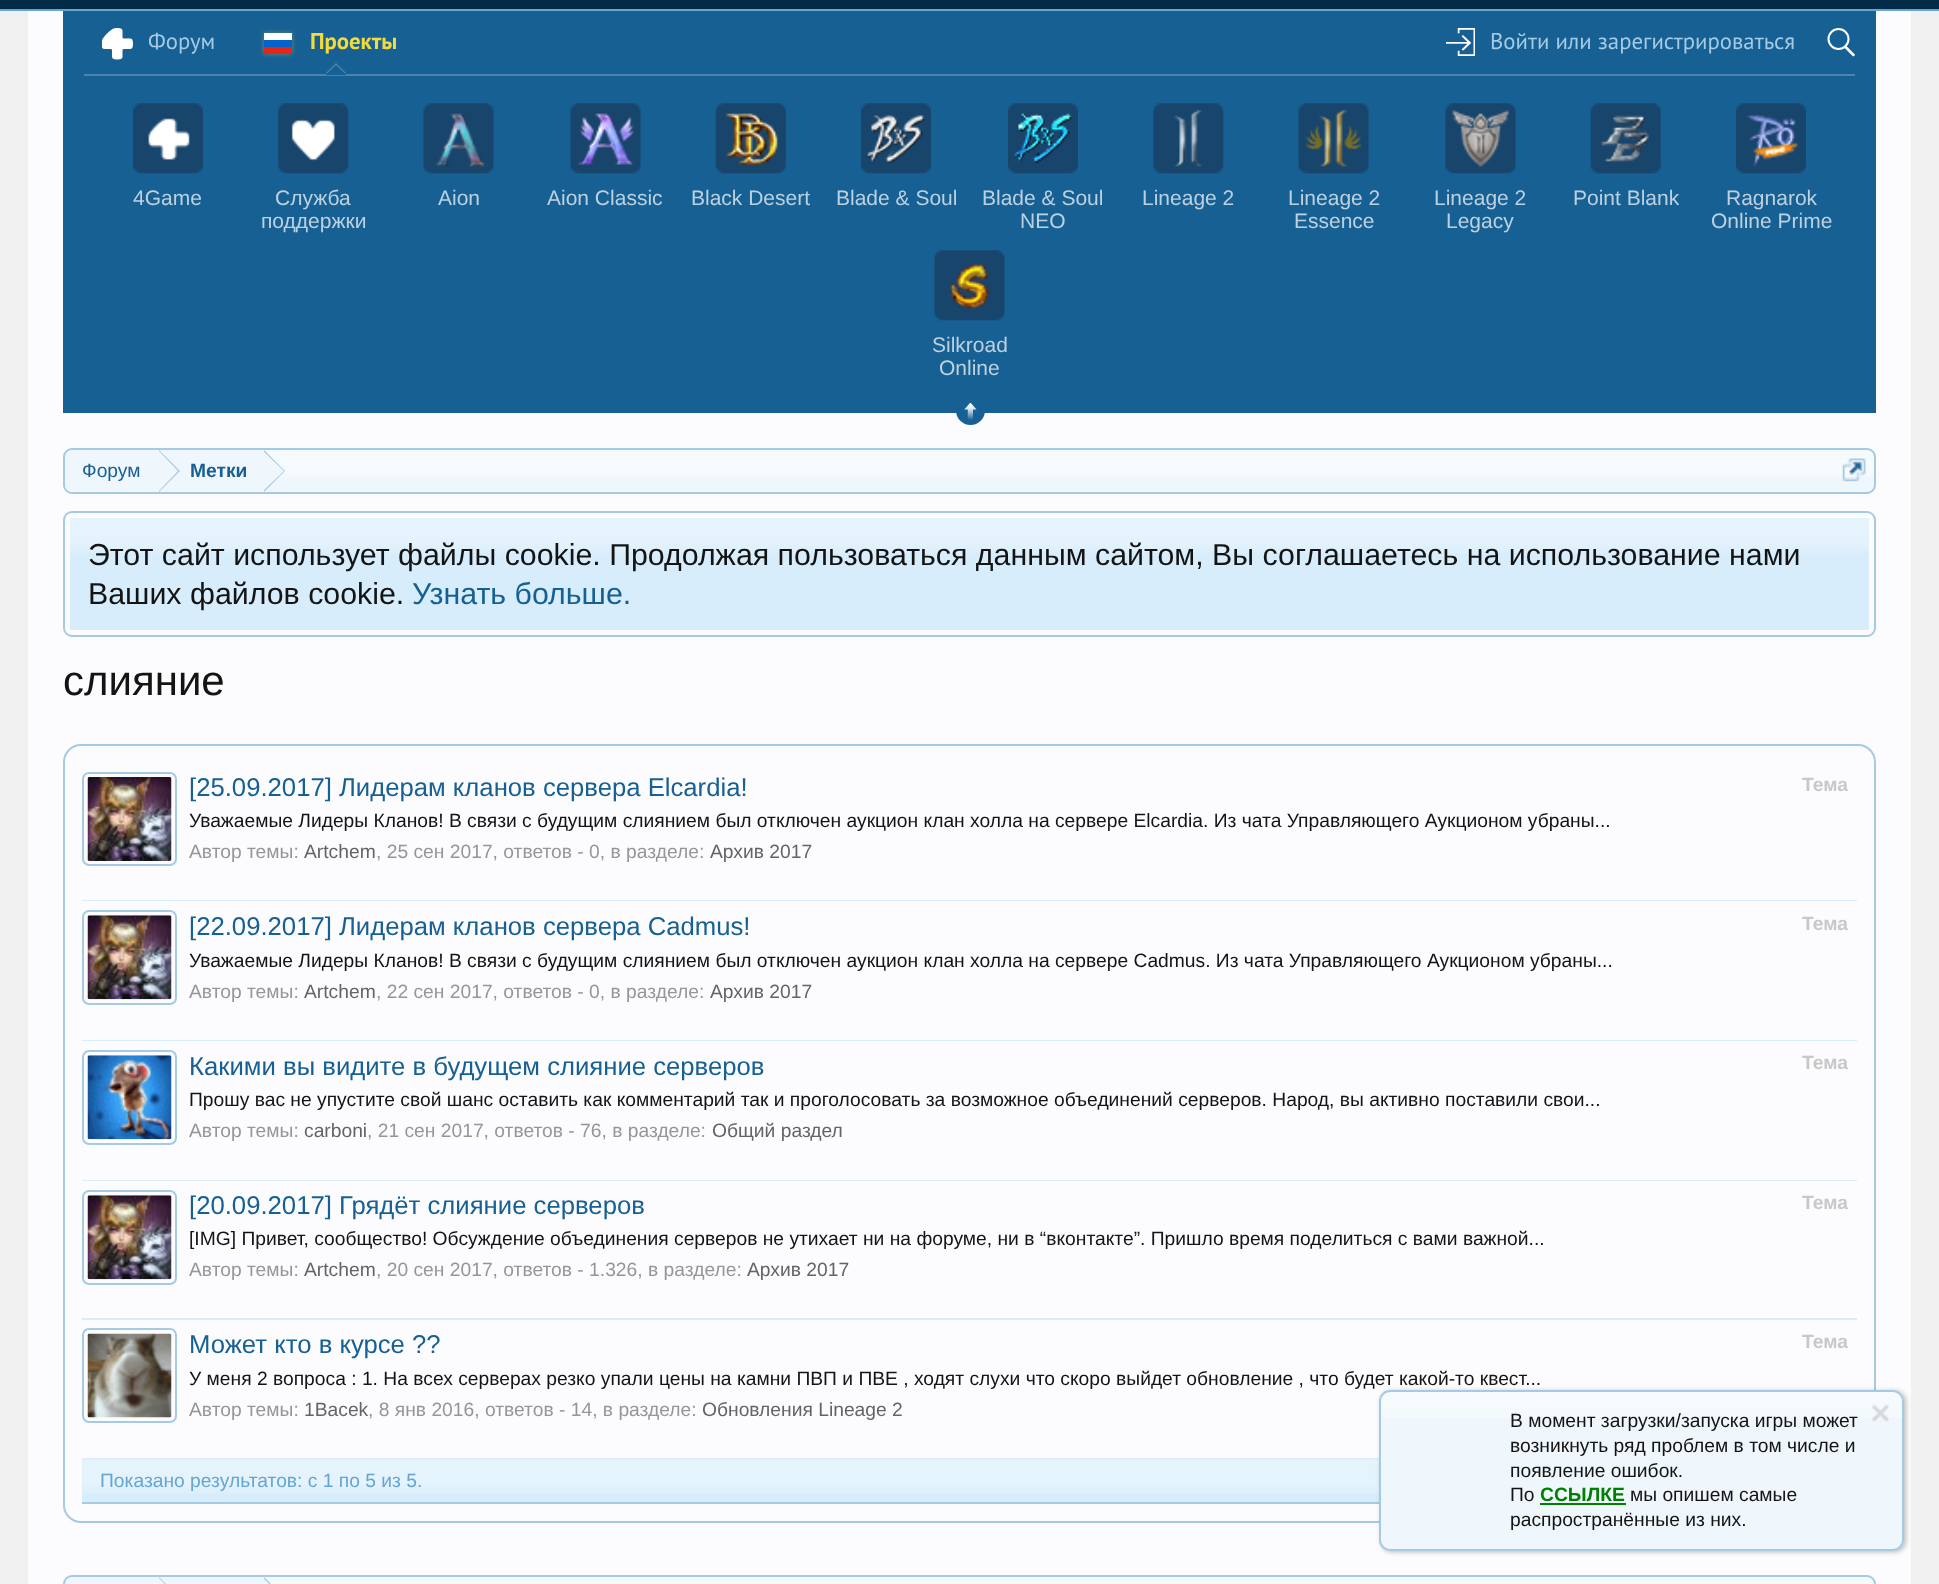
<svg xmlns="http://www.w3.org/2000/svg" width="1939" height="1584" viewBox="0 0 1939 1584">
  <defs>
    <filter id="blur1" x="-50%" y="-200%" width="200%" height="500%"><feGaussianBlur stdDeviation="2.5"/></filter>
    <clipPath id="clip1"><rect x="65" y="450" width="1809" height="42" rx="7"/></clipPath>
  </defs>
  <rect width="100%" height="100%" fill="#f0f0f0"/>
  <rect x="0" y="0" width="1939" height="9" fill="#032a46"/>
  <rect x="0" y="9" width="1939" height="2" fill="#65a5d1"/>
  <rect x="28" y="11" width="1883" height="1573" fill="#fcfcff"/>
  <rect x="63" y="11" width="1813" height="402" fill="#176093"/>
  <rect x="84" y="74" width="1771" height="2" fill="#4c84ac"/>
  <image x="102" y="28" width="31" height="32" href="img1.png"/>
  <text x="148" y="49" font-family="PT Sans" font-size="22.75" fill="#a5cae4">Форум</text>
  <rect x="264" y="33" width="28" height="21" fill="#f5db39" fill-opacity="0.35" filter="url(#blur1)"/>
  <rect x="264" y="33" width="28" height="7" fill="#ffffff"/>
  <rect x="264" y="40" width="28" height="7" fill="#0262cb"/>
  <rect x="264" y="47" width="28" height="7" fill="#e52517"/>
  <text x="310" y="49" font-family="PT Sans" font-size="22.75" font-weight="bold" fill="#f5db39">Проекты</text>
  <path d="M346.5 73.5H325.5L336 63Z" fill="#4c84ac"/>
  <path d="M346.5 75H325.5L336 65Z" fill="#176093"/>
  <image x="1446" y="28" width="29" height="28" href="img2.png"/>
  <text x="1490" y="49" font-family="PT Sans" font-size="22.75" fill="#a5cae4">Войти или зарегистрироваться</text>
  <circle cx="1838.5" cy="39" r="10" fill="none" stroke="#ffffff" stroke-width="2"/>
  <path d="M1845.5 47L1853.5 55" fill="none" stroke="#ffffff" stroke-width="2.5" stroke-linecap="round"/>
  <circle cx="970.5" cy="410.5" r="14.5" fill="#176093"/>
  <image x="964" y="403" width="13" height="17" href="img3.png"/>
  <image x="133" y="103" width="70" height="71" href="img4.png"/>
  <text x="133" y="205" font-family="Liberation Sans" font-size="21" fill="#bcd1e0">4Game</text>
  <image x="278" y="103" width="71" height="71" href="img5.png"/>
  <text x="275" y="205" font-family="Liberation Sans" font-size="21" fill="#bcd1e0">Служба</text>
  <text x="261" y="228" font-family="Liberation Sans" font-size="21" fill="#bcd1e0">поддержки</text>
  <image x="423" y="103" width="71" height="71" href="img6.png"/>
  <text x="438" y="205" font-family="Liberation Sans" font-size="21" fill="#bcd1e0">Aion</text>
  <image x="570" y="103" width="71" height="71" href="img7.png"/>
  <text x="547" y="205" font-family="Liberation Sans" font-size="21" fill="#bcd1e0">Aion Classic</text>
  <image x="715" y="103" width="71" height="71" href="img8.png"/>
  <text x="691" y="205" font-family="Liberation Sans" font-size="21" fill="#bcd1e0">Black Desert</text>
  <image x="861" y="103" width="70" height="71" href="img9.png"/>
  <text x="836" y="205" font-family="Liberation Sans" font-size="21" fill="#bcd1e0">Blade &amp; Soul</text>
  <image x="1008" y="103" width="70" height="71" href="img10.png"/>
  <text x="982" y="205" font-family="Liberation Sans" font-size="21" fill="#bcd1e0">Blade &amp; Soul</text>
  <text x="1020" y="228" font-family="Liberation Sans" font-size="21" fill="#bcd1e0">NEO</text>
  <image x="1153" y="103" width="71" height="71" href="img11.png"/>
  <text x="1142" y="205" font-family="Liberation Sans" font-size="21" fill="#bcd1e0">Lineage 2</text>
  <image x="1298" y="103" width="71" height="71" href="img12.png"/>
  <text x="1288" y="205" font-family="Liberation Sans" font-size="21" fill="#bcd1e0">Lineage 2</text>
  <text x="1294" y="228" font-family="Liberation Sans" font-size="21" fill="#bcd1e0">Essence</text>
  <image x="1445" y="103" width="71" height="71" href="img13.png"/>
  <text x="1434" y="205" font-family="Liberation Sans" font-size="21" fill="#bcd1e0">Lineage 2</text>
  <text x="1446" y="228" font-family="Liberation Sans" font-size="21" fill="#bcd1e0">Legacy</text>
  <image x="1590" y="103" width="71" height="71" href="img14.png"/>
  <text x="1573" y="205" font-family="Liberation Sans" font-size="21" fill="#bcd1e0">Point Blank</text>
  <image x="1736" y="103" width="70" height="71" href="img15.png"/>
  <text x="1726" y="205" font-family="Liberation Sans" font-size="21" fill="#bcd1e0">Ragnarok</text>
  <text x="1711" y="228" font-family="Liberation Sans" font-size="21" fill="#bcd1e0">Online Prime</text>
  <image x="934" y="250" width="71" height="71" href="img16.png"/>
  <text x="932" y="352" font-family="Liberation Sans" font-size="21" fill="#bcd1e0">Silkroad</text>
  <text x="939" y="375" font-family="Liberation Sans" font-size="21" fill="#bcd1e0">Online</text>
  <rect x="63" y="448" width="1813" height="46" rx="9" fill="#f0f7fc"/>
  <image x="63" y="450" width="1813" height="27" href="img17.png"/>
  <rect x="64" y="449" width="1811" height="44" rx="8" fill="none" stroke="#a5cae4" stroke-width="2"/>
  <g clip-path="url(#clip1)">
    <path d="M74 450H159V494H74C69 494 65 490 65 485V459C65 454 69 450 74 450Z" fill="#f0f7fc"/>
  </g>
  <text x="82" y="477" font-family="Liberation Sans" font-size="19.25" fill="#176093">Форум</text>
  <rect x="159" y="450" width="105" height="27" fill="#f0f7fc"/>
  <path d="M159 492V450L180 471Z" fill="#a5cae4"/>
  <path d="M158 492V450L178 471Z" fill="#f0f7fc"/>
  <text x="190" y="477" font-family="Liberation Sans" font-size="19.25" font-weight="bold" fill="#176093">Метки</text>
  <path d="M264 492V450L285 471Z" fill="#a5cae4"/>
  <path d="M262 492V450L284 471Z" fill="#f0f7fc"/>
  <image x="1842" y="458" width="24" height="24" href="img18.png"/>
  <rect x="64" y="512" width="1811" height="124" rx="8" fill="none" stroke="#a5cae4" stroke-width="2"/>
  <rect x="70" y="518" width="1799" height="112" fill="#d7edfc"/>
  <image x="70" y="518" width="1799" height="35" href="img19.png"/>
  <text x="88" y="565" font-family="Liberation Sans" font-size="30.33" fill="#141414">Этот сайт использует файлы cookie. Продолжая пользоваться данным сайтом, Вы соглашаетесь на использование нами</text>
  <text x="88" y="604" font-family="Liberation Sans" font-size="30.33" fill="#141414">Ваших файлов cookie.</text>
  <text x="412" y="604" font-family="Liberation Sans" font-size="30.33" fill="#176093">Узнать больше.</text>
  <text x="63" y="695" font-family="Liberation Sans" font-size="42" fill="#141414">слияние</text>
  <rect x="64" y="745" width="1811" height="777" rx="17" fill="none" stroke="#a5cae4" stroke-width="2"/>
  <rect x="82" y="900" width="1775" height="1" fill="#d7edfc"/>
  <rect x="83" y="773" width="93" height="92" rx="6" fill="none" stroke="#a5cae4" stroke-width="2"/>
  <image x="87" y="777" width="85" height="84" href="img20.png"/>
  <text x="189" y="796" font-family="Liberation Sans" font-size="25.7" fill="#176093">[25.09.2017] Лидерам кланов сервера Elcardia!</text>
  <text x="1802" y="791" font-family="Liberation Sans" font-size="19.25" font-weight="bold" fill="#c8c8c8">Тема</text>
  <text x="189" y="827" font-family="Liberation Sans" font-size="19.25" fill="#141414">Уважаемые Лидеры Кланов! В связи с будущим слиянием был отключен аукцион клан холла на сервере Elcardia. Из чата Управляющего Аукционом убраны...</text>
  <text x="189" y="858" font-family="Liberation Sans" font-size="19.25" fill="#969696">Автор темы:</text>
  <text x="304" y="858" font-family="Liberation Sans" font-size="19.25" fill="#646464">Artchem</text>
  <text x="376" y="858" font-family="Liberation Sans" font-size="19.25" fill="#969696">, 25 сен 2017, ответов - 0, в разделе:</text>
  <text x="710" y="858" font-family="Liberation Sans" font-size="19.25" fill="#646464">Архив 2017</text>
  <rect x="82" y="1040" width="1775" height="1" fill="#d7edfc"/>
  <rect x="83" y="911" width="93" height="93" rx="6" fill="none" stroke="#a5cae4" stroke-width="2"/>
  <image x="87" y="915" width="85" height="85" href="img21.png"/>
  <text x="189" y="935" font-family="Liberation Sans" font-size="25.7" fill="#176093">[22.09.2017] Лидерам кланов сервера Cadmus!</text>
  <text x="1802" y="930" font-family="Liberation Sans" font-size="19.25" font-weight="bold" fill="#c8c8c8">Тема</text>
  <text x="189" y="967" font-family="Liberation Sans" font-size="19.25" fill="#141414">Уважаемые Лидеры Кланов! В связи с будущим слиянием был отключен аукцион клан холла на сервере Cadmus. Из чата Управляющего Аукционом убраны...</text>
  <text x="189" y="998" font-family="Liberation Sans" font-size="19.25" fill="#969696">Автор темы:</text>
  <text x="304" y="998" font-family="Liberation Sans" font-size="19.25" fill="#646464">Artchem</text>
  <text x="376" y="998" font-family="Liberation Sans" font-size="19.25" fill="#969696">, 22 сен 2017, ответов - 0, в разделе:</text>
  <text x="710" y="998" font-family="Liberation Sans" font-size="19.25" fill="#646464">Архив 2017</text>
  <rect x="82" y="1180" width="1775" height="1" fill="#d7edfc"/>
  <rect x="83" y="1051" width="93" height="93" rx="6" fill="none" stroke="#a5cae4" stroke-width="2"/>
  <image x="87" y="1055" width="85" height="85" href="img22.png"/>
  <text x="189" y="1075" font-family="Liberation Sans" font-size="25.7" fill="#176093">Какими вы видите в будущем слияние серверов</text>
  <text x="1802" y="1069" font-family="Liberation Sans" font-size="19.25" font-weight="bold" fill="#c8c8c8">Тема</text>
  <text x="189" y="1106" font-family="Liberation Sans" font-size="19.25" fill="#141414">Прошу вас не упустите свой шанс оставить как комментарий так и проголосовать за возможное объединений серверов. Народ, вы активно поставили свои...</text>
  <text x="189" y="1137" font-family="Liberation Sans" font-size="19.25" fill="#969696">Автор темы:</text>
  <text x="304" y="1137" font-family="Liberation Sans" font-size="19.25" fill="#646464">carboni</text>
  <text x="367" y="1137" font-family="Liberation Sans" font-size="19.25" fill="#969696">, 21 сен 2017, ответов - 76, в разделе:</text>
  <text x="712" y="1137" font-family="Liberation Sans" font-size="19.25" fill="#646464">Общий раздел</text>
  <rect x="82" y="1318" width="1775" height="2" fill="#d7edfc"/>
  <rect x="83" y="1191" width="93" height="93" rx="6" fill="none" stroke="#a5cae4" stroke-width="2"/>
  <image x="87" y="1195" width="85" height="85" href="img21.png"/>
  <text x="189" y="1214" font-family="Liberation Sans" font-size="25.7" fill="#176093">[20.09.2017] Грядёт слияние серверов</text>
  <text x="1802" y="1209" font-family="Liberation Sans" font-size="19.25" font-weight="bold" fill="#c8c8c8">Тема</text>
  <text x="189" y="1245" font-family="Liberation Sans" font-size="19.25" fill="#141414">[IMG] Привет, сообщество! Обсуждение объединения серверов не утихает ни на форуме, ни в “вконтакте”. Пришло время поделиться с вами важной...</text>
  <text x="189" y="1276" font-family="Liberation Sans" font-size="19.25" fill="#969696">Автор темы:</text>
  <text x="304" y="1276" font-family="Liberation Sans" font-size="19.25" fill="#646464">Artchem</text>
  <text x="376" y="1276" font-family="Liberation Sans" font-size="19.25" fill="#969696">, 20 сен 2017, ответов - 1.326, в разделе:</text>
  <text x="747" y="1276" font-family="Liberation Sans" font-size="19.25" fill="#646464">Архив 2017</text>
  <rect x="82" y="1458" width="1297" height="44" fill="#d7edfc"/>
  <rect x="83" y="1329" width="93" height="93" rx="6" fill="none" stroke="#a5cae4" stroke-width="2"/>
  <image x="87" y="1333" width="85" height="85" href="img23.png"/>
  <text x="189" y="1353" font-family="Liberation Sans" font-size="25.7" fill="#176093">Может кто в курсе ??</text>
  <text x="1802" y="1348" font-family="Liberation Sans" font-size="19.25" font-weight="bold" fill="#c8c8c8">Тема</text>
  <text x="189" y="1385" font-family="Liberation Sans" font-size="19.25" fill="#141414">У меня 2 вопроса : 1. На всех серверах резко упали цены на камни ПВП и ПВЕ , ходят слухи что скоро выйдет обновление , что будет какой-то квест...</text>
  <text x="189" y="1416" font-family="Liberation Sans" font-size="19.25" fill="#969696">Автор темы:</text>
  <text x="304" y="1416" font-family="Liberation Sans" font-size="19.25" fill="#646464">1Bacek</text>
  <text x="368" y="1416" font-family="Liberation Sans" font-size="19.25" fill="#969696">, 8 янв 2016, ответов - 14, в разделе:</text>
  <text x="702" y="1416" font-family="Liberation Sans" font-size="19.25" fill="#646464">Обновления Lineage 2</text>
  <image x="82" y="1459" width="1297" height="35" href="img24.png"/>
  <rect x="82" y="1502" width="1297" height="2" fill="#a5cae4"/>
  <text x="100" y="1487" font-family="Liberation Sans" font-size="19.25" fill="#65a5d1">Показано результатов: с 1 по 5 из 5.</text>
  <rect x="1381" y="1391" width="525" height="161" rx="11" fill="#000000" fill-opacity="0.25" filter="url(#blur1)"/>
  <rect x="1379" y="1390" width="525" height="161" rx="11" fill="#f0f7fc"/>
  <image x="1379" y="1392" width="525" height="26" href="img25.png"/>
  <rect x="1380" y="1391" width="523" height="159" rx="10" fill="none" stroke="#a5cae4" stroke-width="2"/>
  <text x="1510" y="1427" font-family="Liberation Sans" font-size="19.25" fill="#141414">В момент загрузки/запуска игры может</text>
  <text x="1510" y="1452" font-family="Liberation Sans" font-size="19.25" fill="#141414">возникнуть ряд проблем в том числе и</text>
  <text x="1510" y="1477" font-family="Liberation Sans" font-size="19.25" fill="#141414">появление ошибок.</text>
  <text x="1510" y="1501" font-family="Liberation Sans" font-size="19.25" fill="#141414">По</text>
  <text x="1540" y="1501" font-family="Liberation Sans" font-size="19.25" font-weight="bold" fill="#008000">ССЫЛКЕ</text>
  <rect x="1540" y="1503" width="86" height="2" fill="#008000"/>
  <text x="1630" y="1501" font-family="Liberation Sans" font-size="19.25" fill="#141414">мы опишем самые</text>
  <text x="1510" y="1526" font-family="Liberation Sans" font-size="19.25" fill="#141414">распространённые из них.</text>
  <image x="1872" y="1404" width="17" height="18" href="img26.png"/>
  <rect x="63" y="1575" width="1813" height="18" rx="9" fill="#f0f7fc"/>
  <image x="63" y="1577" width="1813" height="7" href="img27.png"/>
  <rect x="64" y="1576" width="1811" height="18" rx="8" fill="none" stroke="#a5cae4" stroke-width="2"/>
  <path d="M74 1577H159V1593H74C69 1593 65 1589 65 1584V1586C65 1581 69 1577 74 1577Z" fill="#f0f7fc"/>
  <rect x="159" y="1577" width="105" height="7" fill="#f0f7fc"/>
  <path d="M159 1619V1577L180 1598Z" fill="#a5cae4"/>
  <path d="M158 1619V1577L178 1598Z" fill="#f0f7fc"/>
  <path d="M264 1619V1577L285 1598Z" fill="#a5cae4"/>
  <path d="M262 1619V1577L284 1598Z" fill="#f0f7fc"/>
</svg>
